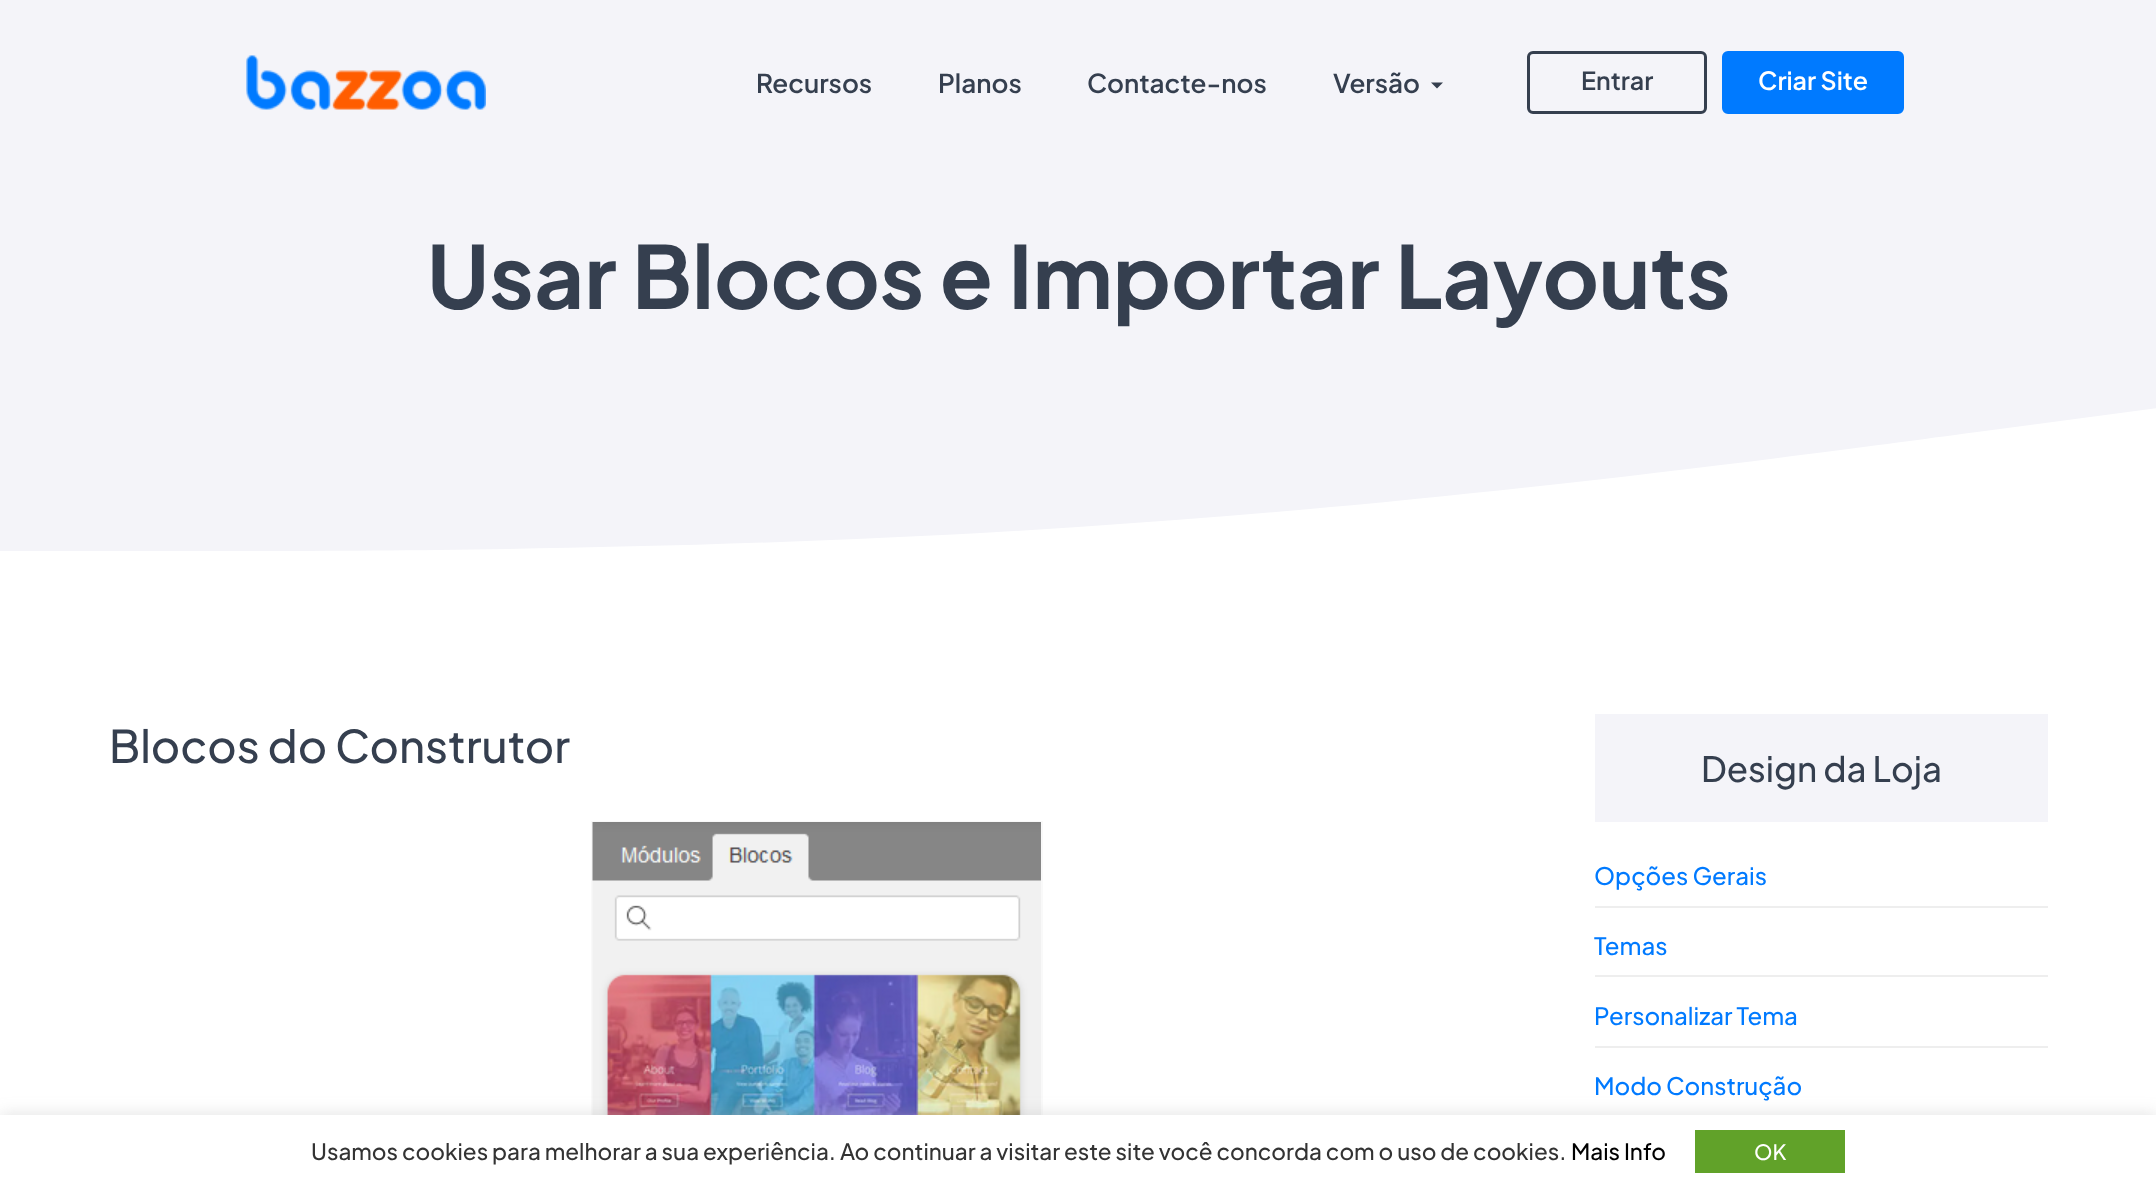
<svg xmlns="http://www.w3.org/2000/svg" width="2156" height="1185" viewBox="0 0 2156 1185">
  <defs>
    <clipPath id="clip1"><rect x="0" y="168" width="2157" height="396"/></clipPath>
    <filter id="blur1" x="-50%" y="-200%" width="200%" height="500%"><feGaussianBlur stdDeviation="7.5"/></filter>
  </defs>
  <rect width="100%" height="100%" fill="#ffffff"/>
  <rect x="0" y="0" width="2156" height="551" fill="#f4f4f9"/>
  <image x="246" y="55" width="240" height="55" href="img1.png"/>
  <text x="756" y="93" font-family="Plus Jakarta Sans" font-size="26" font-weight="600" fill="#353f4f">Recursos</text>
  <text x="938" y="93" font-family="Plus Jakarta Sans" font-size="26" font-weight="600" fill="#353f4f">Planos</text>
  <text x="1087" y="93" font-family="Plus Jakarta Sans" font-size="26" font-weight="600" fill="#353f4f">Contacte-nos</text>
  <text x="1333" y="93" font-family="Plus Jakarta Sans" font-size="26" font-weight="600" fill="#353f4f">Versão</text>
  <path d="M1431 82.5H1443L1437 88.5Z" fill="#353f4f"/>
  <rect x="1528.5" y="52.5" width="177" height="60" rx="4.5" fill="none" stroke="#353f4f" stroke-width="3"/>
  <text x="1581" y="90" font-family="Plus Jakarta Sans" font-size="25" font-weight="600" fill="#353f4f">Entrar</text>
  <rect x="1723.5" y="52.5" width="179" height="60" rx="4.5" fill="#007aff" stroke="#007aff" stroke-width="3"/>
  <text x="1758" y="90" font-family="Plus Jakarta Sans" font-size="25" font-weight="600" fill="#ffffff">Criar Site</text>
  <text x="427" y="309" font-family="Plus Jakarta Sans" font-size="86.75" font-weight="bold" fill="#353f4f">Usar Blocos e Importar Layouts</text>
  <g clip-path="url(#clip1)">
    <path d="M0 551H180C359 551 719 551 1078 527C1438 504 1797 456 1977 432L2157 408V647H0Z" fill="#ffffff"/>
  </g>
  <text x="109" y="763" font-family="Plus Jakarta Sans" font-size="45" font-weight="500" fill="#353f4f">Blocos do Construtor</text>
  <rect x="592" y="822" width="450" height="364" fill="none" stroke="#f9f9f9" stroke-width="2"/>
  <image x="592" y="822" width="449" height="293" href="img2.png"/>
  <rect x="1595" y="714" width="453" height="108" fill="#f4f4f9"/>
  <text x="1701" y="782" font-family="Plus Jakarta Sans" font-size="34.75" font-weight="500" fill="#353f4f">Design da Loja</text>
  <rect x="1595" y="906" width="453" height="2" fill="#eeeeee"/>
  <text x="1594" y="885" font-family="Plus Jakarta Sans" font-size="24" font-weight="500" fill="#007aff">Opções Gerais</text>
  <rect x="1595" y="975" width="453" height="2" fill="#eeeeee"/>
  <text x="1594" y="955" font-family="Plus Jakarta Sans" font-size="24" font-weight="500" fill="#007aff">Temas</text>
  <rect x="1595" y="1046" width="453" height="2" fill="#eeeeee"/>
  <text x="1594" y="1025" font-family="Plus Jakarta Sans" font-size="24" font-weight="500" fill="#007aff">Personalizar Tema</text>
  <text x="1594" y="1095" font-family="Plus Jakarta Sans" font-size="24" font-weight="500" fill="#007aff">Modo Construção</text>
  <rect x="0" y="1113" width="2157" height="71" fill="#acabab" fill-opacity="0.3" filter="url(#blur1)"/>
  <rect x="0" y="1115" width="2156" height="70" fill="#ffffff"/>
  <text x="311" y="1160" font-family="Plus Jakarta Sans" font-size="22.5" font-weight="500" fill="#333333">Usamos cookies para melhorar a sua experiência. Ao continuar a visitar este site você concorda com o uso de cookies.</text>
  <text x="1571" y="1160" font-family="Plus Jakarta Sans" font-size="22.5" font-weight="500" fill="#000000">Mais Info</text>
  <rect x="1695" y="1130" width="150" height="43" fill="#61a229"/>
  <text x="1754" y="1160" font-family="Plus Jakarta Sans" font-size="21" font-weight="500" fill="#ffffff">OK</text>
</svg>
